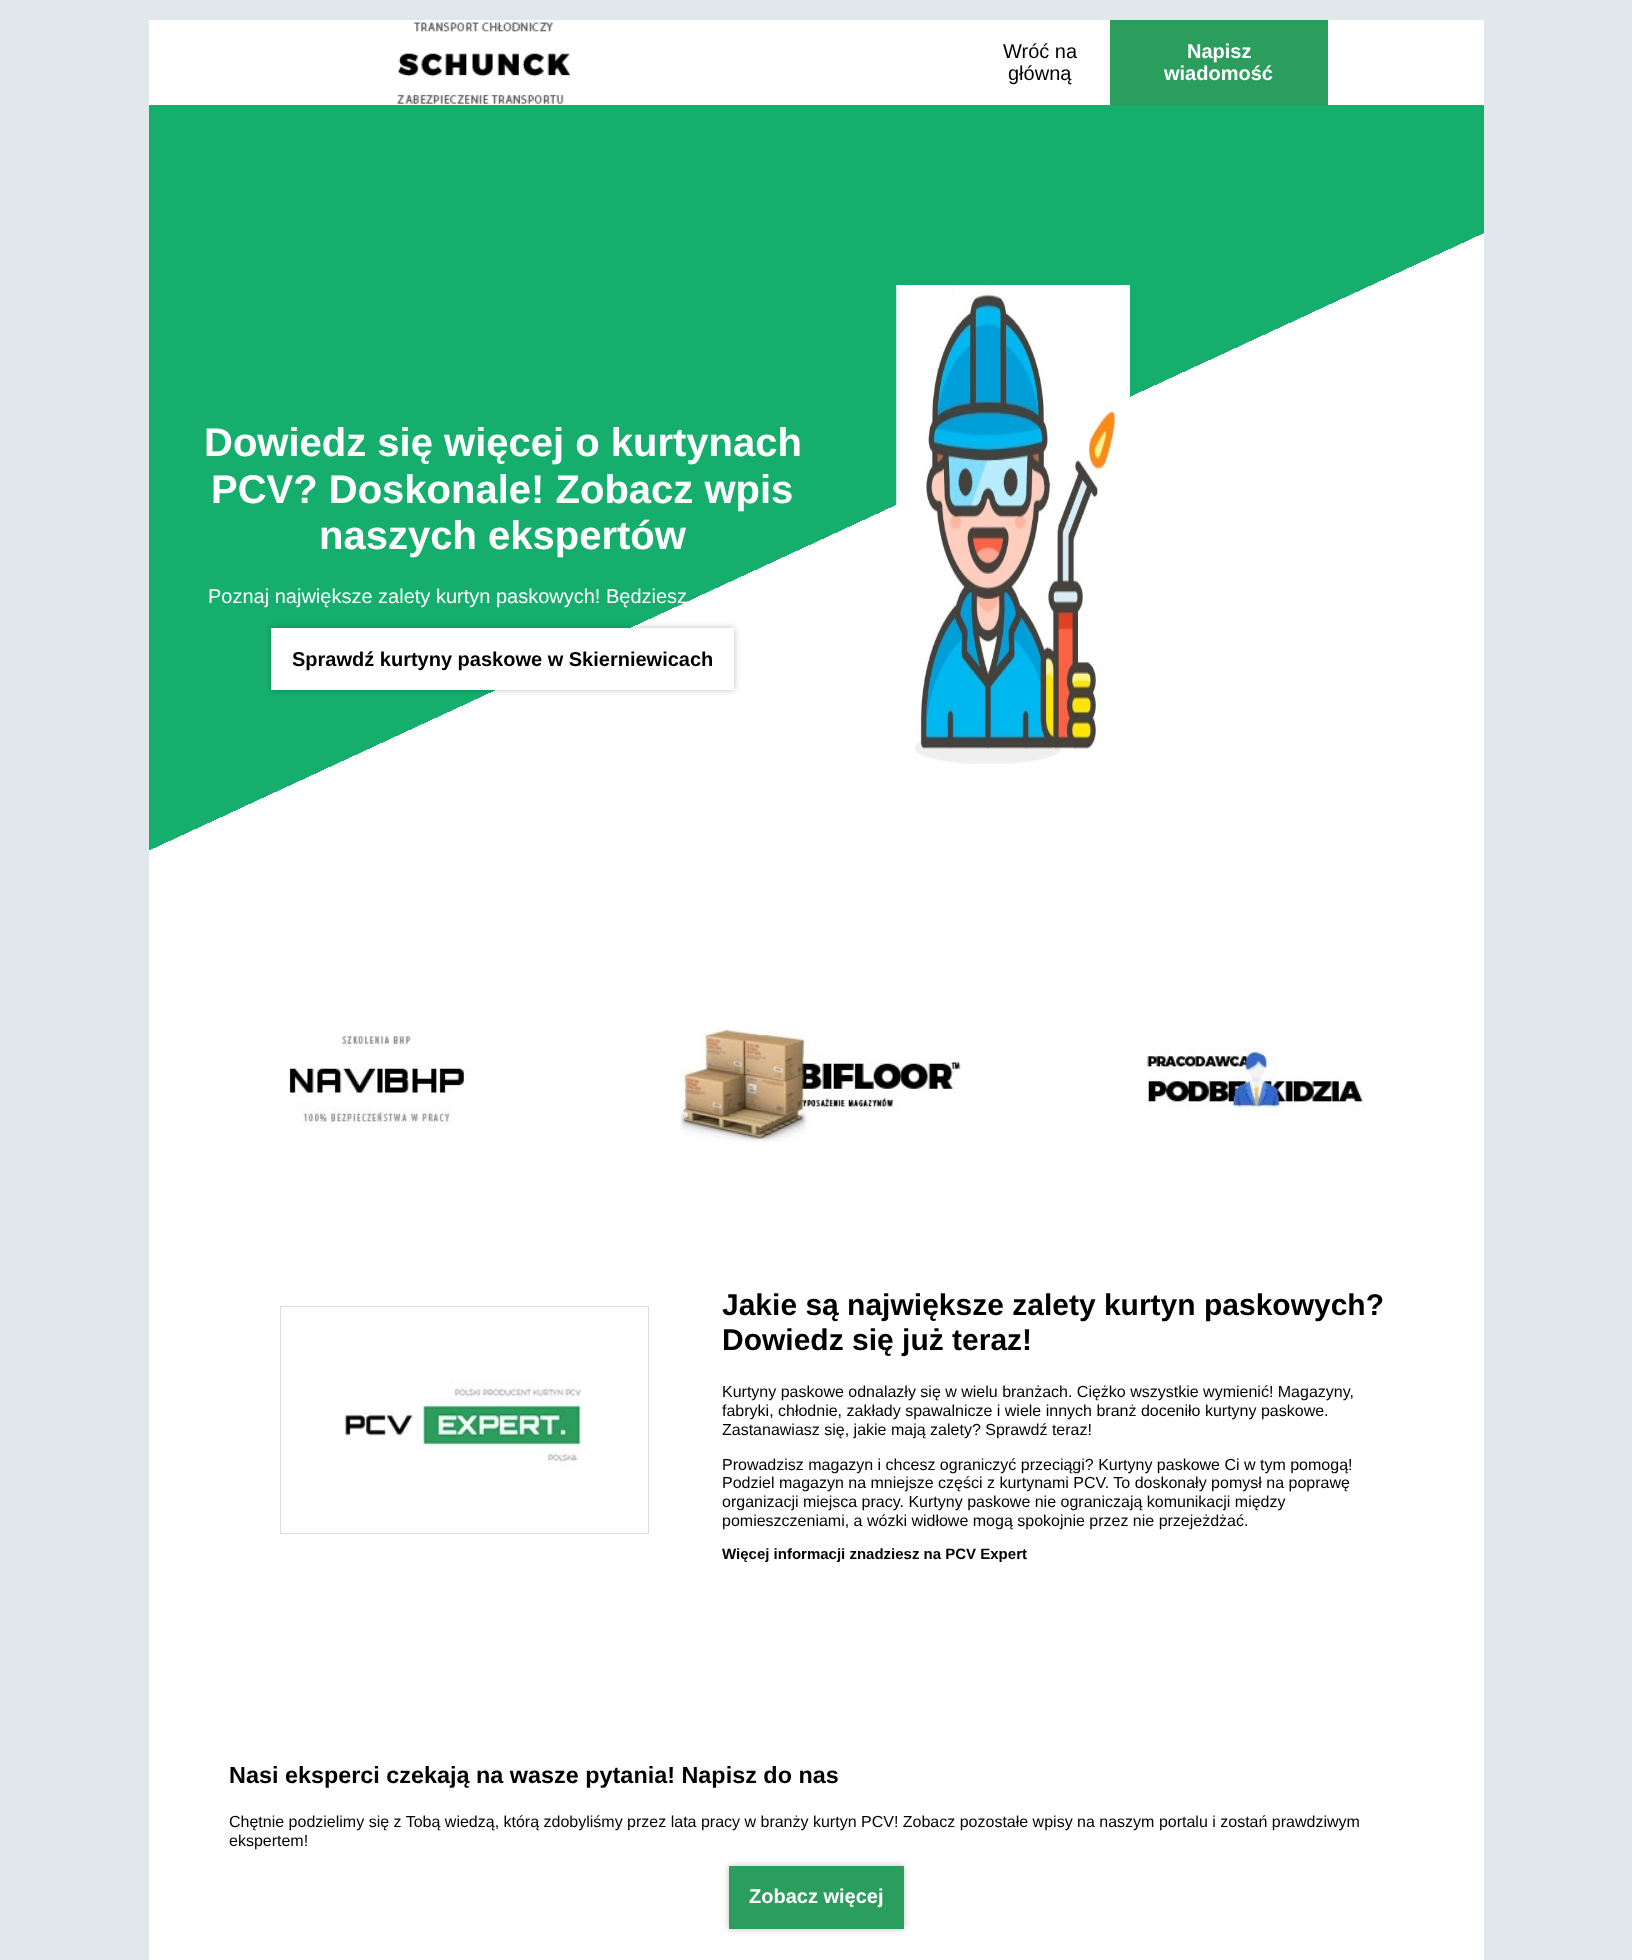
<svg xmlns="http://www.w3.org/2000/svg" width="1632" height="1960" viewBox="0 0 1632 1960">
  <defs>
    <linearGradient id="g1" gradientUnits="userSpaceOnUse" x1="532" y1="-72" x2="1100" y2="1156"><stop offset="0" stop-color="#15ae6d"/><stop offset="0.5" stop-color="#15ae6d"/><stop offset="0.5" stop-color="#ffffff"/><stop offset="1" stop-color="#ffffff"/></linearGradient>
    <filter id="blur1" x="-50%" y="-200%" width="200%" height="500%"><feGaussianBlur stdDeviation="3"/></filter>
  </defs>
  <rect width="100%" height="100%" fill="#e1e8ec"/>
  <rect x="149" y="20" width="1335" height="85" fill="#ffffff"/>
  <image x="397" y="22" width="174" height="82" href="img1.png"/>
  <text x="1003" y="58" font-family="Liberation Sans" font-size="20" fill="#000000">Wróć na</text>
  <text x="1008" y="80" font-family="Liberation Sans" font-size="20" fill="#000000">główną</text>
  <rect x="1110" y="20" width="218" height="85" fill="#2b9e5e"/>
  <text x="1187" y="58" font-family="Liberation Sans" font-size="20" font-weight="bold" fill="#ffffff">Napisz</text>
  <text x="1164" y="80" font-family="Liberation Sans" font-size="20" font-weight="bold" fill="#ffffff">wiadomość</text>
  <rect x="149" y="105" width="1335" height="874" fill="url(#g1)"/>
  <text x="204" y="456" font-family="Liberation Sans" font-size="40" font-weight="bold" fill="#ffffff">Dowiedz się więcej o kurtynach</text>
  <text x="211" y="503" font-family="Liberation Sans" font-size="40" font-weight="bold" fill="#ffffff">PCV? Doskonale! Zobacz wpis</text>
  <text x="319" y="549" font-family="Liberation Sans" font-size="40" font-weight="bold" fill="#ffffff">naszych ekspertów</text>
  <text x="208" y="603" font-family="Liberation Sans" font-size="20" fill="#ffffff">Poznaj największe zalety kurtyn paskowych! Będziesz</text>
  <rect x="271" y="628" width="463" height="62" fill="#000000" fill-opacity="0.26" filter="url(#blur1)"/>
  <rect x="271" y="628" width="463" height="62" fill="#ffffff"/>
  <text x="292" y="666" font-family="Liberation Sans" font-size="20" font-weight="bold" fill="#000000">Sprawdź kurtyny paskowe w Skierniewicach</text>
  <image x="896" y="285" width="234" height="479" href="img2.png"/>
  <rect x="149" y="979" width="1335" height="981" fill="#ffffff"/>
  <image x="289" y="1036" width="181" height="90" href="img3.png"/>
  <image x="680" y="1028" width="282" height="114" href="img4.png"/>
  <image x="1146" y="1047" width="220" height="62" href="img5.png"/>
  <rect x="280.5" y="1306.5" width="368" height="227" fill="none" stroke="#dddddd"/>
  <image x="343" y="1380" width="239" height="90" href="img6.png"/>
  <text x="722" y="1315" font-family="Liberation Sans" font-size="30" font-weight="bold" fill="#000000">Jakie są największe zalety kurtyn paskowych?</text>
  <text x="722" y="1350" font-family="Liberation Sans" font-size="30" font-weight="bold" fill="#000000">Dowiedz się już teraz!</text>
  <text x="722" y="1397" font-family="Liberation Sans" font-size="16" fill="#000000">Kurtyny paskowe odnalazły się w wielu branżach. Ciężko wszystkie wymienić! Magazyny,</text>
  <text x="722" y="1416" font-family="Liberation Sans" font-size="16" fill="#000000">fabryki, chłodnie, zakłady spawalnicze i wiele innych branż doceniło kurtyny paskowe.</text>
  <text x="722" y="1435" font-family="Liberation Sans" font-size="16" fill="#000000">Zastanawiasz się, jakie mają zalety? Sprawdź teraz!</text>
  <text x="722" y="1470" font-family="Liberation Sans" font-size="16" fill="#000000">Prowadzisz magazyn i chcesz ograniczyć przeciągi? Kurtyny paskowe Ci w tym pomogą!</text>
  <text x="722" y="1488" font-family="Liberation Sans" font-size="16" fill="#000000">Podziel magazyn na mniejsze części z kurtynami PCV. To doskonały pomysł na poprawę</text>
  <text x="722" y="1507" font-family="Liberation Sans" font-size="16" fill="#000000">organizacji miejsca pracy. Kurtyny paskowe nie ograniczają komunikacji między</text>
  <text x="722" y="1526" font-family="Liberation Sans" font-size="16" fill="#000000">pomieszczeniami, a wózki widłowe mogą spokojnie przez nie przejeżdżać.</text>
  <text x="722" y="1559" font-family="Liberation Sans" font-size="15" font-weight="bold" fill="#000000">Więcej informacji znadziesz na PCV Expert</text>
  <text x="229" y="1783" font-family="Liberation Sans" font-size="23.4" font-weight="bold" fill="#000000">Nasi eksperci czekają na wasze pytania! Napisz do nas</text>
  <text x="229" y="1827" font-family="Liberation Sans" font-size="16" fill="#000000">Chętnie podzielimy się z Tobą wiedzą, którą zdobyliśmy przez lata pracy w branży kurtyn PCV! Zobacz pozostałe wpisy na naszym portalu i zostań prawdziwym</text>
  <text x="229" y="1846" font-family="Liberation Sans" font-size="16" fill="#000000">ekspertem!</text>
  <rect x="729" y="1866" width="175" height="63" fill="#000000" fill-opacity="0.26" filter="url(#blur1)"/>
  <rect x="729" y="1866" width="175" height="63" fill="#2b9e5d"/>
  <text x="749" y="1903" font-family="Liberation Sans" font-size="20" font-weight="bold" fill="#ffffff">Zobacz więcej</text>
</svg>
